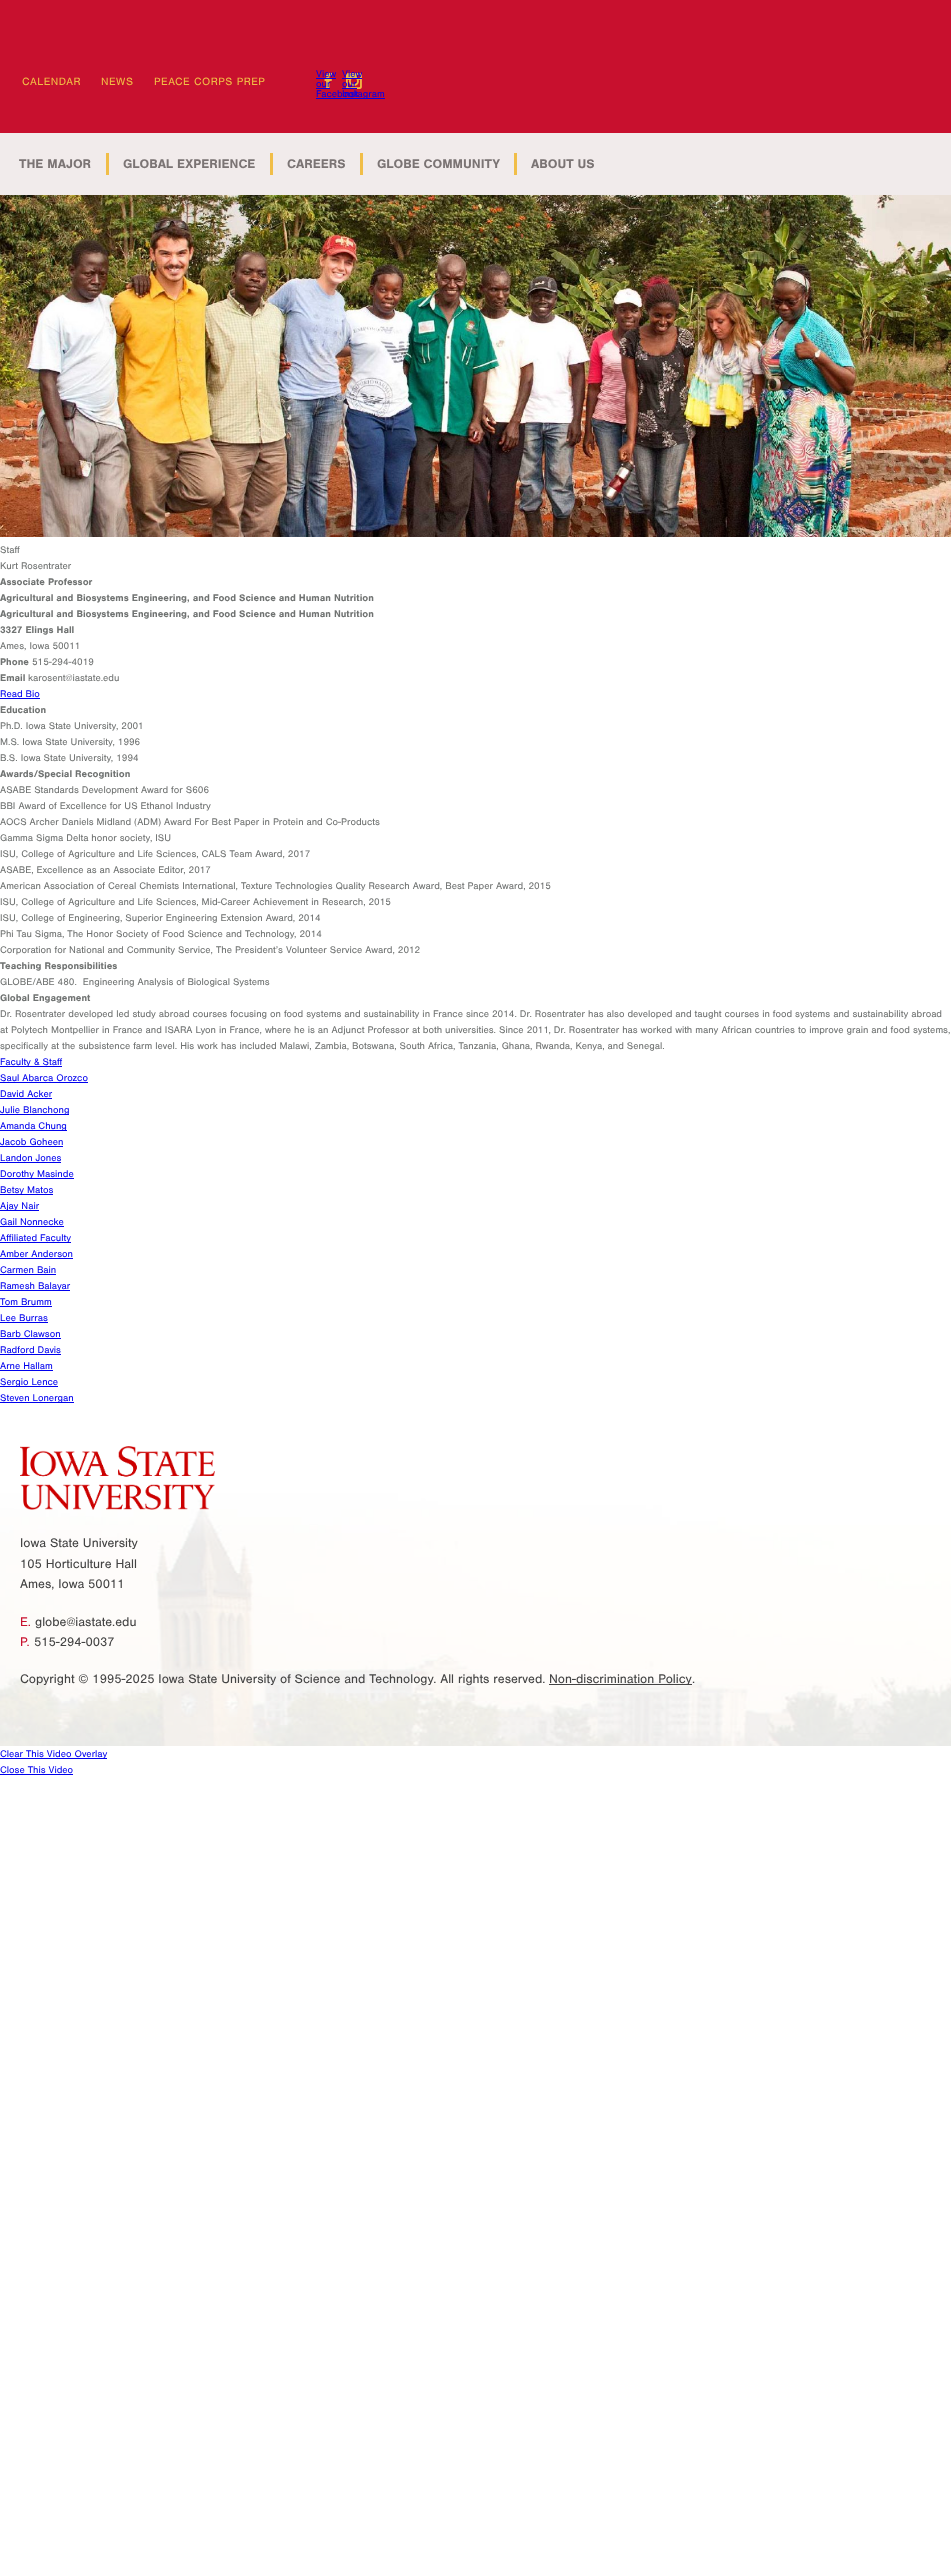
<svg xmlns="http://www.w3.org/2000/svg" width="951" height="2550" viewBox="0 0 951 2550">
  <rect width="100%" height="100%" fill="#ffffff"/>
  <rect x="0" y="0" width="951" height="133" fill="#c8102e"/>
  <text x="22" y="85" font-family="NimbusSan" font-size="11" letter-spacing="0.5" fill="#f1bc45">CALENDAR</text>
  <text x="101" y="85" font-family="NimbusSan" font-size="11" letter-spacing="0.5" fill="#f1bc45">NEWS</text>
  <text x="154" y="85" font-family="NimbusSan" font-size="11" letter-spacing="0.5" fill="#f1bc45">PEACE CORPS PREP</text>
  <image x="324" y="73" width="8" height="15" href="img1.png"/>
  <text x="316" y="77" font-family="NimbusSan" font-size="10" fill="#0000ee">View</text>
  <rect x="316" y="78" width="20" height="1" fill="#0000ee"/>
  <text x="316" y="87" font-family="NimbusSan" font-size="10" fill="#0000ee">our</text>
  <rect x="316" y="88" width="14" height="1" fill="#0000ee"/>
  <text x="316" y="97" font-family="NimbusSan" font-size="10" fill="#0000ee">Facebook</text>
  <rect x="316" y="98" width="69" height="1" fill="#0000ee"/>
  <image x="346" y="73" width="16" height="16" href="img2.png"/>
  <text x="342" y="77" font-family="NimbusSan" font-size="10" fill="#0000ee">View</text>
  <rect x="342" y="78" width="20" height="1" fill="#0000ee"/>
  <text x="342" y="87" font-family="NimbusSan" font-size="10" fill="#0000ee">our</text>
  <rect x="342" y="88" width="15" height="1" fill="#0000ee"/>
  <text x="342" y="97" font-family="NimbusSan" font-size="10" fill="#0000ee">Instagram</text>
  <rect x="0" y="133" width="951" height="62" fill="#f1ebeb"/>
  <rect x="106" y="153" width="3" height="22" fill="#f1be48"/>
  <text x="19" y="168" font-family="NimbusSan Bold" font-size="13" font-weight="bold" fill="#7b7474">THE MAJOR</text>
  <rect x="270" y="153" width="3" height="22" fill="#f1be48"/>
  <text x="123" y="168" font-family="NimbusSan Bold" font-size="13" font-weight="bold" fill="#7b7474">GLOBAL EXPERIENCE</text>
  <rect x="360" y="153" width="3" height="22" fill="#f1be48"/>
  <text x="287" y="168" font-family="NimbusSan Bold" font-size="13" font-weight="bold" fill="#7b7474">CAREERS</text>
  <rect x="514" y="153" width="3" height="22" fill="#f1be48"/>
  <text x="377" y="168" font-family="NimbusSan Bold" font-size="13" font-weight="bold" fill="#7b7474">GLOBE COMMUNITY</text>
  <text x="531" y="168" font-family="NimbusSan Bold" font-size="13" font-weight="bold" fill="#7b7474">ABOUT US</text>
  <image x="0" y="195" width="951" height="342" href="img3.png"/>
  <text x="0" y="553" font-family="NimbusSan" font-size="10" fill="#707372">Staff</text>
  <text x="0" y="569" font-family="NimbusSan" font-size="10" fill="#707372">Kurt Rosentrater</text>
  <text x="0" y="585" font-family="NimbusSan Bold" font-size="10" font-weight="bold" fill="#707372">Associate Professor</text>
  <text x="0" y="601" font-family="NimbusSan Bold" font-size="10" font-weight="bold" fill="#707372">Agricultural and Biosystems Engineering, and Food Science and Human Nutrition</text>
  <text x="0" y="617" font-family="NimbusSan Bold" font-size="10" font-weight="bold" fill="#707372">Agricultural and Biosystems Engineering, and Food Science and Human Nutrition</text>
  <text x="0" y="633" font-family="NimbusSan Bold" font-size="10" font-weight="bold" fill="#707372">3327 Elings Hall</text>
  <text x="0" y="649" font-family="NimbusSan" font-size="10" fill="#707372">Ames, Iowa 50011</text>
  <text x="0" y="665" font-family="NimbusSan Bold" font-size="10" font-weight="bold" fill="#707372">Phone</text>
  <text x="32" y="665" font-family="NimbusSan" font-size="10" fill="#707372">515-294-4019</text>
  <text x="0" y="681" font-family="NimbusSan Bold" font-size="10" font-weight="bold" fill="#707372">Email</text>
  <text x="28" y="681" font-family="NimbusSan" font-size="10" fill="#707372">karosent@iastate.edu</text>
  <text x="0" y="697" font-family="NimbusSan" font-size="10" fill="#0000ee">Read Bio</text>
  <rect x="0" y="698" width="40" height="1" fill="#0000ee"/>
  <text x="0" y="713" font-family="NimbusSan Bold" font-size="10" font-weight="bold" fill="#707372">Education</text>
  <text x="0" y="729" font-family="NimbusSan" font-size="10" fill="#707372">Ph.D. Iowa State University, 2001</text>
  <text x="0" y="745" font-family="NimbusSan" font-size="10" fill="#707372">M.S. Iowa State University, 1996</text>
  <text x="0" y="761" font-family="NimbusSan" font-size="10" fill="#707372">B.S. Iowa State University, 1994</text>
  <text x="0" y="777" font-family="NimbusSan Bold" font-size="10" font-weight="bold" fill="#707372">Awards/Special Recognition</text>
  <text x="0" y="793" font-family="NimbusSan" font-size="10" fill="#707372">ASABE Standards Development Award for S606</text>
  <text x="0" y="809" font-family="NimbusSan" font-size="10" fill="#707372">BBI Award of Excellence for US Ethanol Industry</text>
  <text x="0" y="825" font-family="NimbusSan" font-size="10" fill="#707372">AOCS Archer Daniels Midland (ADM) Award For Best Paper in Protein and Co-Products</text>
  <text x="0" y="841" font-family="NimbusSan" font-size="10" fill="#707372">Gamma Sigma Delta honor society, ISU</text>
  <text x="0" y="857" font-family="NimbusSan" font-size="10" fill="#707372">ISU, College of Agriculture and Life Sciences, CALS Team Award, 2017</text>
  <text x="0" y="873" font-family="NimbusSan" font-size="10" fill="#707372">ASABE, Excellence as an Associate Editor, 2017</text>
  <text x="0" y="889" font-family="NimbusSan" font-size="10" fill="#707372">American Association of Cereal Chemists International, Texture Technologies Quality Research Award, Best Paper Award, 2015</text>
  <text x="0" y="905" font-family="NimbusSan" font-size="10" fill="#707372">ISU, College of Agriculture and Life Sciences, Mid-Career Achievement in Research, 2015</text>
  <text x="0" y="921" font-family="NimbusSan" font-size="10" fill="#707372">ISU, College of Engineering, Superior Engineering Extension Award, 2014</text>
  <text x="0" y="937" font-family="NimbusSan" font-size="10" fill="#707372">Phi Tau Sigma, The Honor Society of Food Science and Technology, 2014</text>
  <text x="0" y="953" font-family="NimbusSan" font-size="10" fill="#707372">Corporation for National and Community Service, The President’s Volunteer Service Award, 2012</text>
  <text x="0" y="969" font-family="NimbusSan Bold" font-size="10" font-weight="bold" fill="#707372">Teaching Responsibilities</text>
  <text x="0" y="985" font-family="NimbusSan" font-size="10" fill="#707372" xml:space="preserve">GLOBE/ABE 480.  Engineering Analysis of Biological Systems</text>
  <text x="0" y="1001" font-family="NimbusSan Bold" font-size="10" font-weight="bold" fill="#707372">Global Engagement</text>
  <text x="0" y="1017" font-family="NimbusSan" font-size="10" fill="#707372">Dr. Rosentrater developed led study abroad courses focusing on food systems and sustainability in France since 2014. Dr. Rosentrater has also developed and taught courses in food systems and sustainability abroad</text>
  <text x="0" y="1033" font-family="NimbusSan" font-size="10" fill="#707372">at Polytech Montpellier in France and ISARA Lyon in France, where he is an Adjunct Professor at both universities. Since 2011, Dr. Rosentrater has worked with many African countries to improve grain and food systems,</text>
  <text x="0" y="1049" font-family="NimbusSan" font-size="10" fill="#707372">specifically at the subsistence farm level. His work has included Malawi, Zambia, Botswana, South Africa, Tanzania, Ghana, Rwanda, Kenya, and Senegal.</text>
  <rect x="0" y="1066" width="62" height="1" fill="#0000ee"/>
  <text x="0" y="1065" font-family="NimbusSan" font-size="10" fill="#0000ee">Faculty &amp; Staff</text>
  <text x="0" y="1081" font-family="NimbusSan" font-size="10" fill="#0000ee">Saul Abarca Orozco</text>
  <rect x="0" y="1082" width="88" height="1" fill="#0000ee"/>
  <text x="0" y="1097" font-family="NimbusSan" font-size="10" fill="#0000ee">David Acker</text>
  <rect x="0" y="1098" width="52" height="1" fill="#0000ee"/>
  <rect x="0" y="1114" width="69" height="1" fill="#0000ee"/>
  <text x="0" y="1113" font-family="NimbusSan" font-size="10" fill="#0000ee">Julie Blanchong</text>
  <rect x="0" y="1130" width="67" height="1" fill="#0000ee"/>
  <text x="0" y="1129" font-family="NimbusSan" font-size="10" fill="#0000ee">Amanda Chung</text>
  <text x="0" y="1145" font-family="NimbusSan" font-size="10" fill="#0000ee">Jacob Goheen</text>
  <rect x="0" y="1146" width="63" height="1" fill="#0000ee"/>
  <text x="0" y="1161" font-family="NimbusSan" font-size="10" fill="#0000ee">Landon Jones</text>
  <rect x="0" y="1162" width="61" height="1" fill="#0000ee"/>
  <rect x="0" y="1178" width="74" height="1" fill="#0000ee"/>
  <text x="0" y="1177" font-family="NimbusSan" font-size="10" fill="#0000ee">Dorothy Masinde</text>
  <rect x="0" y="1194" width="53" height="1" fill="#0000ee"/>
  <text x="0" y="1193" font-family="NimbusSan" font-size="10" fill="#0000ee">Betsy Matos</text>
  <rect x="0" y="1210" width="39" height="1" fill="#0000ee"/>
  <text x="0" y="1209" font-family="NimbusSan" font-size="10" fill="#0000ee">Ajay Nair</text>
  <text x="0" y="1225" font-family="NimbusSan" font-size="10" fill="#0000ee">Gail Nonnecke</text>
  <rect x="0" y="1226" width="64" height="1" fill="#0000ee"/>
  <rect x="0" y="1242" width="71" height="1" fill="#0000ee"/>
  <text x="0" y="1241" font-family="NimbusSan" font-size="10" fill="#0000ee">Affiliated Faculty</text>
  <text x="0" y="1257" font-family="NimbusSan" font-size="10" fill="#0000ee">Amber Anderson</text>
  <rect x="0" y="1258" width="73" height="1" fill="#0000ee"/>
  <text x="0" y="1273" font-family="NimbusSan" font-size="10" fill="#0000ee">Carmen Bain</text>
  <rect x="0" y="1274" width="56" height="1" fill="#0000ee"/>
  <rect x="0" y="1290" width="70" height="1" fill="#0000ee"/>
  <text x="0" y="1289" font-family="NimbusSan" font-size="10" fill="#0000ee">Ramesh Balayar</text>
  <text x="0" y="1305" font-family="NimbusSan" font-size="10" fill="#0000ee">Tom Brumm</text>
  <rect x="0" y="1306" width="52" height="1" fill="#0000ee"/>
  <text x="0" y="1321" font-family="NimbusSan" font-size="10" fill="#0000ee">Lee Burras</text>
  <rect x="0" y="1322" width="48" height="1" fill="#0000ee"/>
  <text x="0" y="1337" font-family="NimbusSan" font-size="10" fill="#0000ee">Barb Clawson</text>
  <rect x="0" y="1338" width="61" height="1" fill="#0000ee"/>
  <text x="0" y="1353" font-family="NimbusSan" font-size="10" fill="#0000ee">Radford Davis</text>
  <rect x="0" y="1354" width="61" height="1" fill="#0000ee"/>
  <text x="0" y="1369" font-family="NimbusSan" font-size="10" fill="#0000ee">Arne Hallam</text>
  <rect x="0" y="1370" width="53" height="1" fill="#0000ee"/>
  <rect x="0" y="1386" width="58" height="1" fill="#0000ee"/>
  <text x="0" y="1385" font-family="NimbusSan" font-size="10" fill="#0000ee">Sergio Lence</text>
  <rect x="0" y="1402" width="74" height="1" fill="#0000ee"/>
  <text x="0" y="1401" font-family="NimbusSan" font-size="10" fill="#0000ee">Steven Lonergan</text>
  <image x="0" y="1493" width="951" height="253" href="img4.png"/>
  <image x="20" y="1446" width="195" height="64" href="img5.png"/>
  <text x="20" y="1547" font-family="NimbusSan" font-size="13" fill="#444444">Iowa State University</text>
  <text x="20" y="1568" font-family="NimbusSan" font-size="13" fill="#444444">105 Horticulture Hall</text>
  <text x="20" y="1588" font-family="NimbusSan" font-size="13" fill="#444444">Ames, Iowa 50011</text>
  <text x="20" y="1626" font-family="NimbusSan" font-size="13" fill="#c8102e">E.</text>
  <text x="35" y="1626" font-family="NimbusSan" font-size="13" fill="#444444">globe@iastate.edu</text>
  <text x="20" y="1646" font-family="NimbusSan" font-size="13" fill="#c8102e">P.</text>
  <text x="34" y="1646" font-family="NimbusSan" font-size="13" fill="#444444">515-294-0037</text>
  <text x="20" y="1683" font-family="NimbusSan" font-size="13" fill="#444444">Copyright © 1995-2025 Iowa State University of Science and Technology. All rights reserved.</text>
  <rect x="549" y="1684" width="143" height="1" fill="#444444"/>
  <text x="549" y="1683" font-family="NimbusSan" font-size="13" fill="#444444">Non-discrimination Policy</text>
  <text x="692" y="1683" font-family="NimbusSan" font-size="13" fill="#444444">.</text>
  <rect x="0" y="1758" width="107" height="1" fill="#0000ee"/>
  <text x="0" y="1757" font-family="NimbusSan" font-size="10" fill="#0000ee">Clear This Video Overlay</text>
  <text x="0" y="1773" font-family="NimbusSan" font-size="10" fill="#0000ee">Close This Video</text>
  <rect x="0" y="1774" width="73" height="1" fill="#0000ee"/>
</svg>
